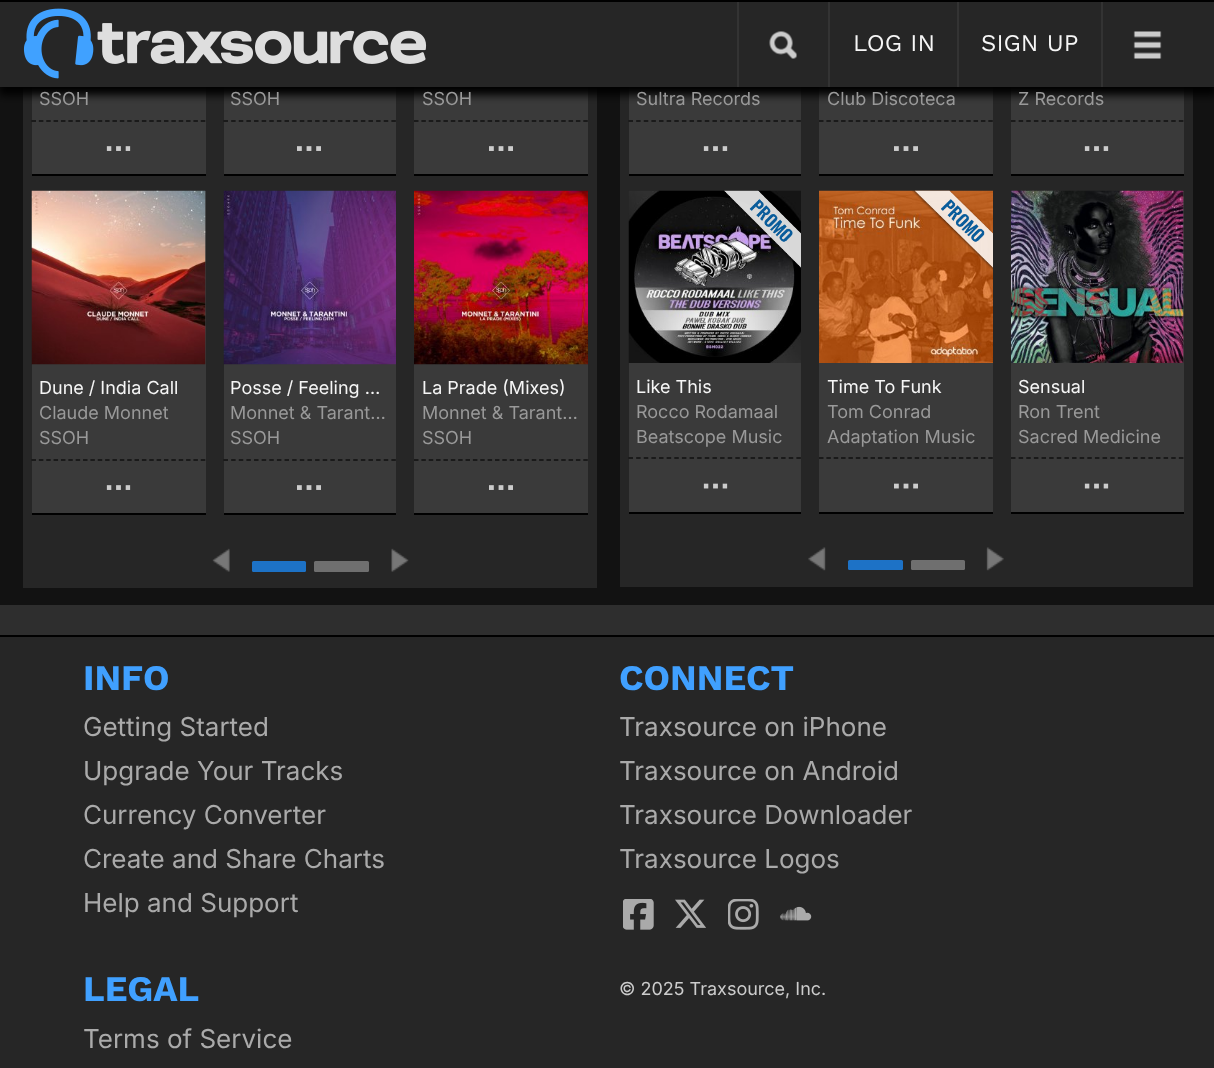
<svg xmlns="http://www.w3.org/2000/svg" width="1214" height="1068" viewBox="0 0 1214 1068">
  <defs>
    <filter id="blur1" x="-50%" y="-200%" width="200%" height="500%"><feGaussianBlur stdDeviation="4"/></filter>
    <clipPath id="clip1"><rect x="62" y="666" width="1093" height="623"/></clipPath>
  </defs>
  <rect width="100%" height="100%" fill="#121212"/>
  <rect x="23" y="87" width="574" height="501" fill="#262626"/>
  <rect x="32" y="87" width="174" height="87" fill="#3a3a3a"/>
  <rect x="224" y="87" width="172" height="87" fill="#3a3a3a"/>
  <rect x="414" y="87" width="174" height="87" fill="#3a3a3a"/>
  <rect x="620" y="87" width="573" height="500" fill="#262626"/>
  <rect x="629" y="87" width="172" height="87" fill="#3a3a3a"/>
  <rect x="819" y="87" width="174" height="87" fill="#3a3a3a"/>
  <rect x="1011" y="87" width="173" height="87" fill="#3a3a3a"/>
  <rect x="-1" y="5" width="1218" height="90" fill="#000000" filter="url(#blur1)"/>
  <rect x="0" y="2" width="1214" height="85" fill="#262626"/>
  <rect x="737" y="0" width="2" height="87" fill="#333333"/>
  <rect x="828" y="0" width="2" height="87" fill="#333333"/>
  <rect x="957" y="0" width="2" height="87" fill="#333333"/>
  <rect x="1101" y="0" width="2" height="87" fill="#333333"/>
  <rect x="0" y="0" width="1214" height="2" fill="#000000"/>
  <image x="23" y="8" width="404" height="71" href="img1.png"/>
  <image x="769" y="31" width="28" height="28" href="img2.png"/>
  <text x="853" y="51" font-family="Work Sans" font-size="24" fill="#f6f6f6">LOG IN</text>
  <text x="981" y="51" font-family="Work Sans" font-size="24" fill="#f6f6f6">SIGN UP</text>
  <image x="1133" y="31" width="29" height="28" href="img3.png"/>
  <text x="39" y="105" font-family="Inter" font-size="18" fill="#999999">SSOH</text>
  <path d="M31.5 121H205.5" fill="none" stroke="#111111" stroke-width="1.5" stroke-dasharray="4.5 2.86"/>
  <rect x="32" y="174" width="174" height="2" fill="#000000"/>
  <image x="106" y="146" width="25" height="5" href="img4.png"/>
  <text x="230" y="105" font-family="Inter" font-size="18" fill="#999999">SSOH</text>
  <path d="M223.5 121H396" fill="none" stroke="#111111" stroke-width="1.5" stroke-dasharray="4.5 3.13"/>
  <rect x="224" y="174" width="172" height="2" fill="#000000"/>
  <image x="297" y="146" width="24" height="5" href="img5.png"/>
  <text x="422" y="105" font-family="Inter" font-size="18" fill="#999999">SSOH</text>
  <path d="M414 121H588" fill="none" stroke="#111111" stroke-width="1.5" stroke-dasharray="4.5 2.86"/>
  <rect x="414" y="174" width="174" height="2" fill="#000000"/>
  <image x="489" y="146" width="24" height="5" href="img5.png"/>
  <rect x="32" y="191" width="174" height="322" fill="#3a3a3a"/>
  <image x="31" y="190" width="175" height="175" href="img6.png"/>
  <text x="39" y="394" font-family="Inter" font-size="18" fill="#f6f6f6">Dune / India Call</text>
  <text x="39" y="419" font-family="Inter" font-size="18" fill="#999999">Claude Monnet</text>
  <text x="39" y="444" font-family="Inter" font-size="18" fill="#999999">SSOH</text>
  <path d="M31.5 460H205.5" fill="none" stroke="#111111" stroke-width="1.5" stroke-dasharray="4.5 2.86"/>
  <rect x="32" y="513" width="174" height="2" fill="#000000"/>
  <image x="106" y="485" width="25" height="5" href="img4.png"/>
  <rect x="224" y="364" width="172" height="149" fill="#3a3a3a"/>
  <image x="223" y="190" width="173" height="175" href="img7.png"/>
  <text x="230" y="394" font-family="Inter" font-size="18" fill="#f6f6f6">Posse / Feeling …</text>
  <text x="230" y="419" font-family="Inter" font-size="18" fill="#999999">Monnet &amp; Tarant…</text>
  <text x="230" y="444" font-family="Inter" font-size="18" fill="#999999">SSOH</text>
  <path d="M223.5 460H396" fill="none" stroke="#111111" stroke-width="1.5" stroke-dasharray="4.5 3.13"/>
  <rect x="224" y="513" width="172" height="2" fill="#000000"/>
  <image x="297" y="485" width="24" height="5" href="img5.png"/>
  <rect x="414" y="364" width="174" height="149" fill="#3a3a3a"/>
  <image x="414" y="190" width="174" height="175" href="img8.png"/>
  <text x="422" y="394" font-family="Inter" font-size="18" fill="#f6f6f6">La Prade (Mixes)</text>
  <text x="422" y="419" font-family="Inter" font-size="18" fill="#999999">Monnet &amp; Tarant…</text>
  <text x="422" y="444" font-family="Inter" font-size="18" fill="#999999">SSOH</text>
  <path d="M414 460H588" fill="none" stroke="#111111" stroke-width="1.5" stroke-dasharray="4.5 2.86"/>
  <rect x="414" y="513" width="174" height="2" fill="#000000"/>
  <image x="489" y="485" width="24" height="5" href="img5.png"/>
  <image x="212" y="548" width="18" height="24" href="img9.png"/>
  <rect x="252" y="561" width="54" height="11" rx="1.5" fill="#1d72c6"/>
  <rect x="314" y="561" width="55" height="11" rx="1.5" fill="#6f6f6f"/>
  <image x="391" y="548" width="18" height="24" href="img10.png"/>
  <text x="636" y="105" font-family="Inter" font-size="18" fill="#999999">Sultra Records</text>
  <path d="M628.5 121H801" fill="none" stroke="#111111" stroke-width="1.5" stroke-dasharray="4.5 3.13"/>
  <rect x="629" y="174" width="172" height="2" fill="#000000"/>
  <image x="703" y="146" width="25" height="5" href="img4.png"/>
  <text x="827" y="105" font-family="Inter" font-size="18" fill="#999999">Club Discoteca</text>
  <path d="M819 121H993" fill="none" stroke="#111111" stroke-width="1.5" stroke-dasharray="4.5 2.86"/>
  <rect x="819" y="174" width="174" height="2" fill="#000000"/>
  <image x="894" y="146" width="24" height="5" href="img5.png"/>
  <text x="1018" y="105" font-family="Inter" font-size="18" fill="#999999">Z Records</text>
  <path d="M1011 121H1183.5" fill="none" stroke="#111111" stroke-width="1.5" stroke-dasharray="4.5 3.13"/>
  <rect x="1011" y="174" width="173" height="2" fill="#000000"/>
  <image x="1084" y="146" width="25" height="5" href="img4.png"/>
  <rect x="629" y="363" width="172" height="149" fill="#3a3a3a"/>
  <image x="628" y="190" width="173" height="173" href="img11.png"/>
  <image x="724" y="190" width="77" height="78" href="img12.png"/>
  <text x="636" y="393" font-family="Inter" font-size="18" fill="#f6f6f6">Like This</text>
  <text x="636" y="418" font-family="Inter" font-size="18" fill="#999999">Rocco Rodamaal</text>
  <text x="636" y="443" font-family="Inter" font-size="18" fill="#999999">Beatscope Music</text>
  <path d="M628.5 458H801" fill="none" stroke="#111111" stroke-width="1.5" stroke-dasharray="4.5 3.13"/>
  <rect x="629" y="512" width="172" height="2" fill="#000000"/>
  <image x="703" y="483" width="25" height="6" href="img13.png"/>
  <rect x="819" y="363" width="174" height="149" fill="#3a3a3a"/>
  <image x="819" y="190" width="174" height="173" href="img14.png"/>
  <image x="912" y="190" width="81" height="81" href="img15.png"/>
  <text x="827" y="393" font-family="Inter" font-size="18" fill="#f6f6f6">Time To Funk</text>
  <text x="827" y="418" font-family="Inter" font-size="18" fill="#999999">Tom Conrad</text>
  <text x="827" y="443" font-family="Inter" font-size="18" fill="#999999">Adaptation Music</text>
  <path d="M819 458H993" fill="none" stroke="#111111" stroke-width="1.5" stroke-dasharray="4.5 2.86"/>
  <rect x="819" y="512" width="174" height="2" fill="#000000"/>
  <image x="894" y="483" width="24" height="6" href="img16.png"/>
  <rect x="1011" y="191" width="173" height="321" fill="#3a3a3a"/>
  <image x="1011" y="190" width="173" height="173" href="img17.png"/>
  <text x="1018" y="393" font-family="Inter" font-size="18" fill="#f6f6f6">Sensual</text>
  <text x="1018" y="418" font-family="Inter" font-size="18" fill="#999999">Ron Trent</text>
  <text x="1018" y="443" font-family="Inter" font-size="18" fill="#999999">Sacred Medicine</text>
  <path d="M1011 458H1183.5" fill="none" stroke="#111111" stroke-width="1.5" stroke-dasharray="4.5 3.13"/>
  <rect x="1011" y="512" width="173" height="2" fill="#000000"/>
  <image x="1084" y="483" width="25" height="6" href="img13.png"/>
  <image x="808" y="547" width="18" height="24" href="img18.png"/>
  <rect x="848" y="560" width="55" height="10" rx="1.5" fill="#1d72c6"/>
  <rect x="911" y="560" width="54" height="10" rx="1.5" fill="#6f6f6f"/>
  <image x="986" y="547" width="18" height="24" href="img19.png"/>
  <rect x="0" y="637" width="1214" height="431" fill="#262626"/>
  <rect x="0" y="605" width="1214" height="30" fill="#2e2e2e"/>
  <rect x="0" y="635" width="1214" height="2" fill="#000000"/>
  <g clip-path="url(#clip1)">
    <text x="83" y="690" font-family="Work Sans" font-size="36" font-weight="bold" fill="#40a0ff">INFO</text>
  </g>
  <text x="83" y="736" font-family="Inter" font-size="26" fill="#aaaaaa">Getting Started</text>
  <text x="83" y="780" font-family="Inter" font-size="26" fill="#aaaaaa">Upgrade Your Tracks</text>
  <text x="83" y="824" font-family="Inter" font-size="26" fill="#aaaaaa">Currency Converter</text>
  <text x="83" y="868" font-family="Inter" font-size="26" fill="#aaaaaa">Create and Share Charts</text>
  <text x="83" y="912" font-family="Inter" font-size="26" fill="#aaaaaa">Help and Support</text>
  <g clip-path="url(#clip1)">
    <text x="619" y="690" font-family="Work Sans" font-size="36" font-weight="bold" fill="#40a0ff">CONNECT</text>
  </g>
  <text x="619" y="736" font-family="Inter" font-size="26" fill="#aaaaaa">Traxsource on iPhone</text>
  <text x="619" y="780" font-family="Inter" font-size="26" fill="#aaaaaa">Traxsource on Android</text>
  <text x="619" y="824" font-family="Inter" font-size="26" fill="#aaaaaa">Traxsource Downloader</text>
  <text x="619" y="868" font-family="Inter" font-size="26" fill="#aaaaaa">Traxsource Logos</text>
  <image x="623" y="899" width="31" height="31" href="img20.png"/>
  <image x="675" y="899" width="31" height="29" href="img21.png"/>
  <image x="728" y="899" width="31" height="31" href="img22.png"/>
  <image x="780" y="906" width="32" height="15" href="img23.png"/>
  <text x="83" y="1001" font-family="Work Sans" font-size="36" font-weight="bold" fill="#40a0ff">LEGAL</text>
  <text x="83" y="1048" font-family="Inter" font-size="26" fill="#aaaaaa">Terms of Service</text>
  <text x="619" y="995" font-family="Inter" font-size="18" fill="#cccccc">© 2025 Traxsource, Inc.</text>
</svg>
